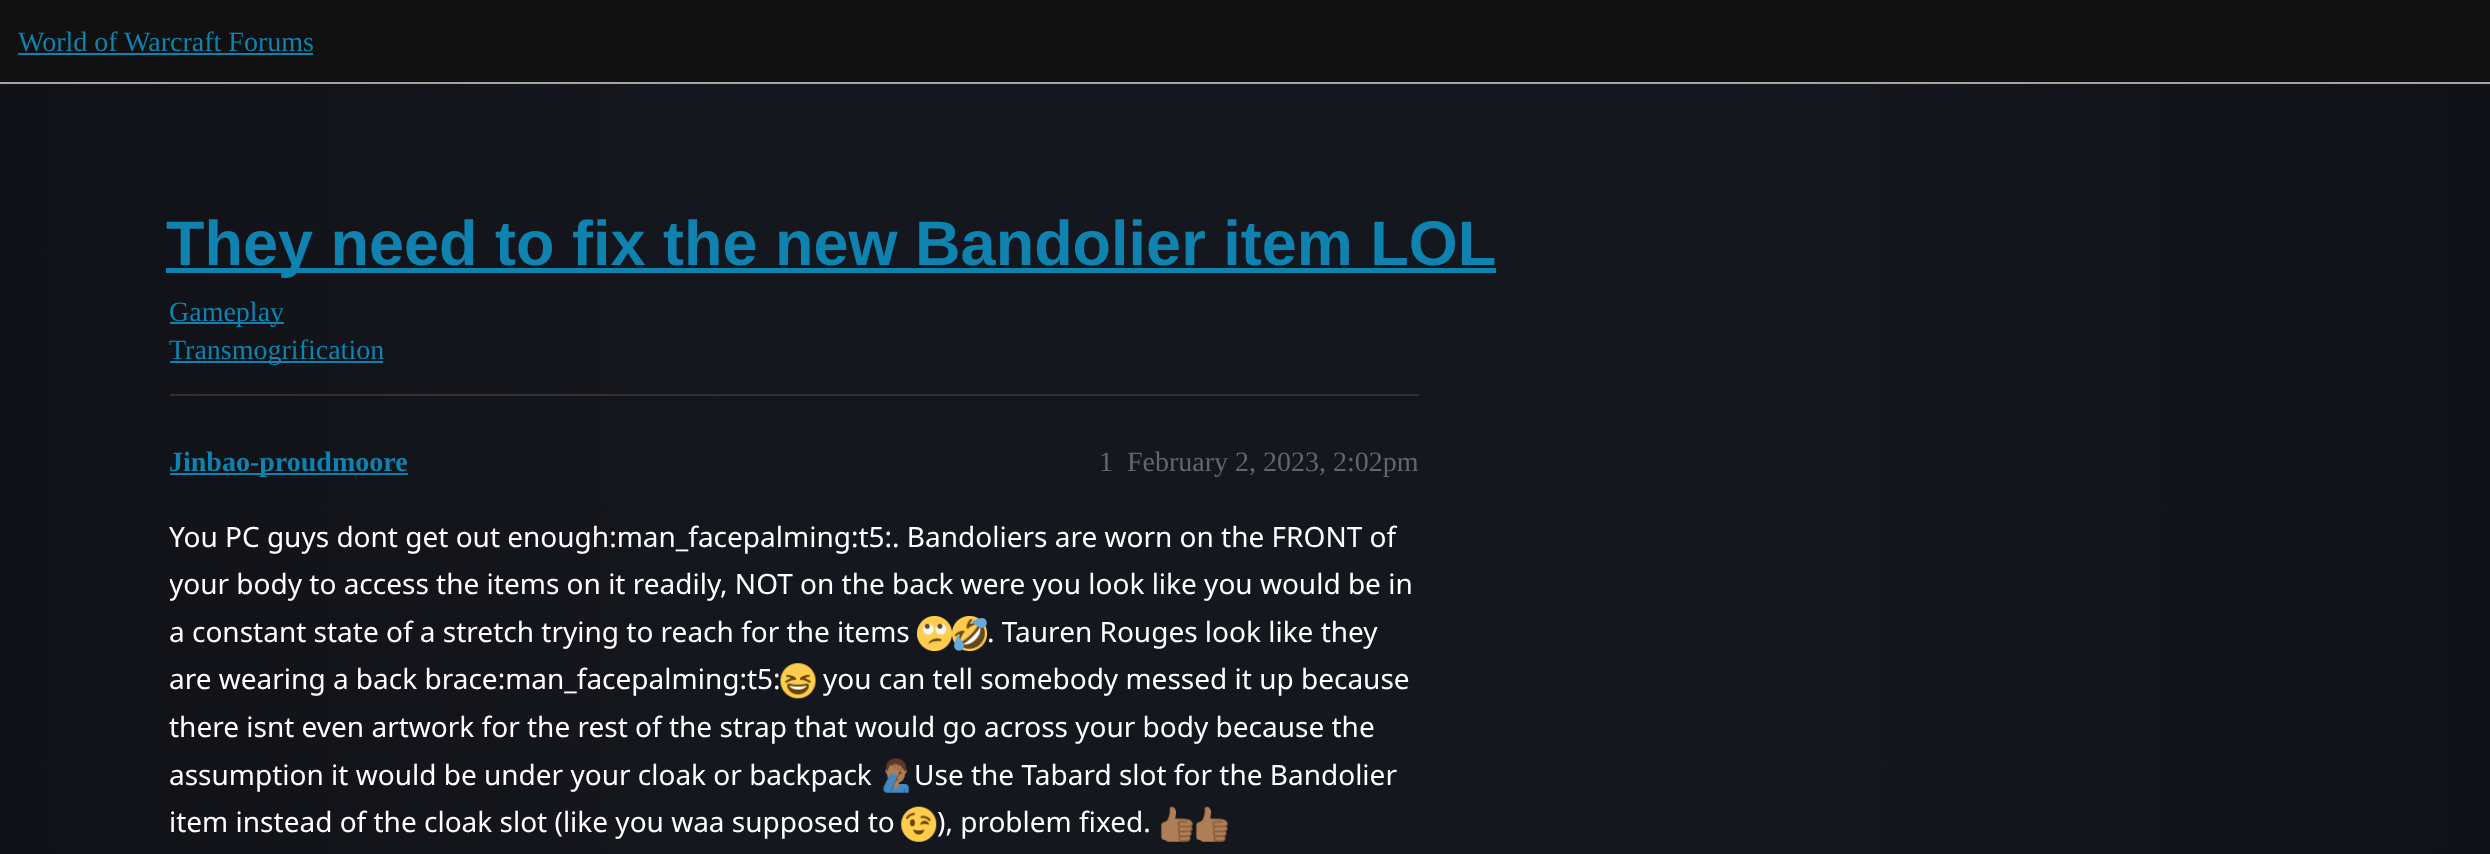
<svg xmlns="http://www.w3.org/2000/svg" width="2490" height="854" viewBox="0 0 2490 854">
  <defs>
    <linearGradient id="g1" gradientUnits="userSpaceOnUse" x1="0" y1="687" x2="2490" y2="687"><stop offset="0" stop-color="#111217"/><stop offset="0.3" stop-color="#15171e"/><stop offset="0.7" stop-color="#15171e"/><stop offset="1" stop-color="#111217"/></linearGradient>
    <clipPath id="clip1"><rect x="170" y="513" width="1249" height="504"/></clipPath>
  </defs>
  <rect width="100%" height="100%" fill="#ffffff"/>
  <rect x="0" y="84" width="2490" height="770" fill="url(#g1)"/>
  <rect x="0" y="0" width="2490" height="82" fill="#111111"/>
  <rect x="0" y="82" width="2490" height="2" fill="#a4a4a4"/>
  <text x="18" y="51" font-family="Liberation Serif" font-size="28" fill="#0f82af">World of Warcraft Forums</text>
  <rect x="18" y="53" width="295" height="2" fill="#0f82af"/>
  <rect x="166" y="268" width="1330" height="5" fill="#0f82af"/>
  <text x="166" y="265" font-family="Liberation Sans" font-size="63" font-weight="bold" fill="#0f82af">They need to fix the new Bandolier item LOL</text>
  <rect x="170" y="322" width="114" height="2" fill="#0f82af"/>
  <text x="169" y="321" font-family="Liberation Serif" font-size="28" fill="#0f82af">Gameplay</text>
  <rect x="170" y="361" width="213" height="2" fill="#0f82af"/>
  <text x="169" y="359" font-family="Liberation Serif" font-size="28" fill="#0f82af">Transmogrification</text>
  <rect x="170" y="394" width="1249" height="2" fill="#313131"/>
  <rect x="170" y="473" width="238" height="2" fill="#0f82af"/>
  <text x="169" y="471" font-family="Liberation Serif" font-size="28" font-weight="bold" fill="#0f82af">Jinbao-proudmoore</text>
  <text x="1099" y="471" font-family="Liberation Serif" font-size="28" fill="#666666">1</text>
  <text x="1127" y="471" font-family="Liberation Serif" font-size="28" fill="#666666">February 2, 2023, 2:02pm</text>
  <text x="169" y="547" font-family="Noto Sans" font-size="28" fill="#ffffff">You PC guys dont get out enough:man_facepalming:t5:. Bandoliers are worn on the FRONT of</text>
  <g clip-path="url(#clip1)">
    <text x="169" y="594" font-family="Noto Sans" font-size="28" fill="#ffffff">your body to access the items on it readily, NOT on the back were you look like you would be in</text>
  </g>
  <text x="169" y="642" font-family="Noto Sans" font-size="28" fill="#ffffff">a constant state of a stretch trying to reach for the items</text>
  <image x="917" y="616" width="35" height="35" href="img1.png"/>
  <image x="952" y="616" width="35" height="35" href="img2.png"/>
  <text x="987" y="642" font-family="Noto Sans" font-size="28" fill="#ffffff">. Tauren Rouges look like they</text>
  <text x="169" y="689" font-family="Noto Sans" font-size="28" fill="#ffffff">are wearing a back brace:man_facepalming:t5:</text>
  <image x="780" y="663" width="36" height="36" href="img3.png"/>
  <text x="823" y="689" font-family="Noto Sans" font-size="28" fill="#ffffff">you can tell somebody messed it up because</text>
  <text x="169" y="737" font-family="Noto Sans" font-size="28" fill="#ffffff">there isnt even artwork for the rest of the strap that would go across your body because the</text>
  <text x="169" y="785" font-family="Noto Sans" font-size="28" fill="#ffffff">assumption it would be under your cloak or backpack</text>
  <image x="883" y="757" width="26" height="36" href="img4.png"/>
  <text x="914" y="785" font-family="Noto Sans" font-size="28" fill="#ffffff">Use the Tabard slot for the Bandolier</text>
  <text x="169" y="832" font-family="Noto Sans" font-size="28" fill="#ffffff">item instead of the cloak slot (like you waa supposed to</text>
  <image x="901" y="806" width="36" height="36" href="img5.png"/>
  <text x="937" y="832" font-family="Noto Sans" font-size="28" fill="#ffffff">), problem fixed.</text>
  <image x="1160" y="806" width="33" height="36" href="img6.png"/>
  <image x="1195" y="806" width="33" height="36" href="img6.png"/>
</svg>
